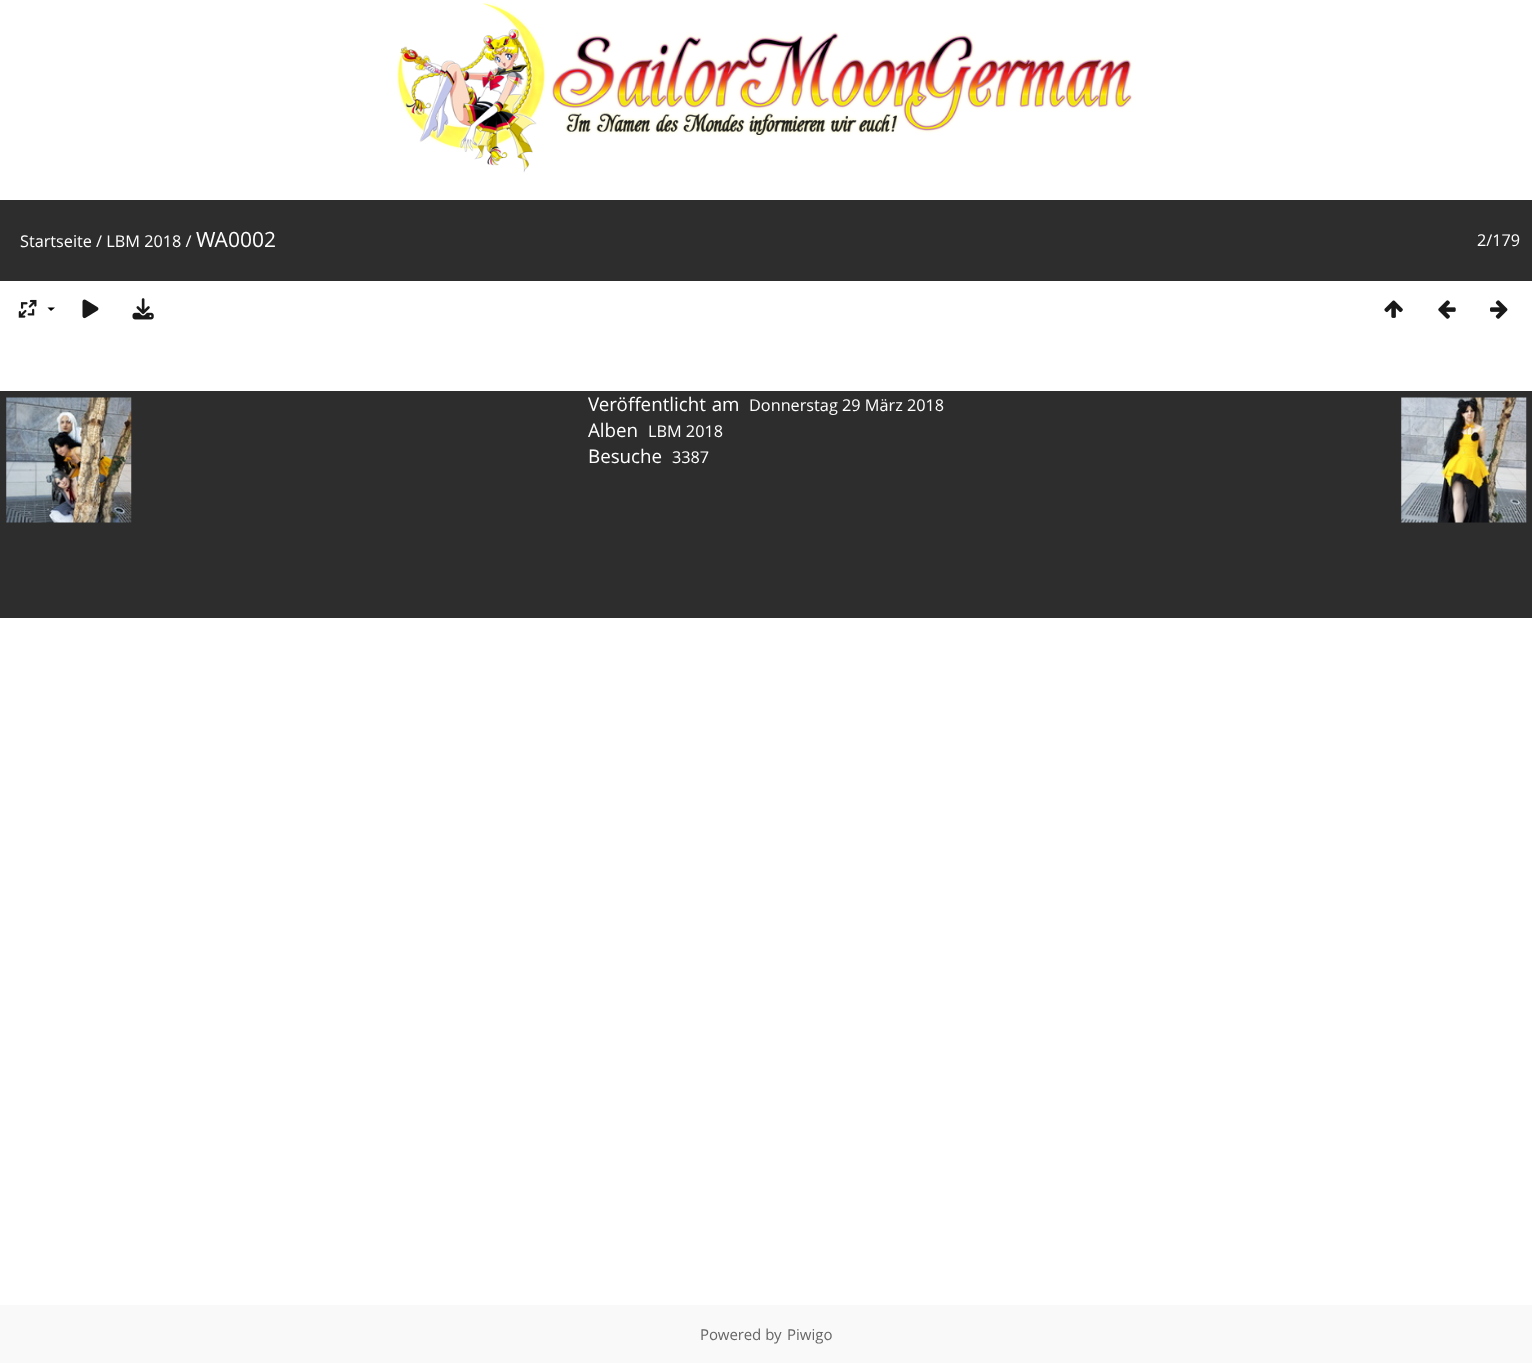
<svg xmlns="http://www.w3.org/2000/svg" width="1532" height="1363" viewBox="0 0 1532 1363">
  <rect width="100%" height="100%" fill="#ffffff"/>
  <image x="396" y="2" width="737" height="171" href="img1.png"/>
  <rect x="0" y="200" width="1532" height="81" fill="#2d2d2d"/>
  <text x="20" y="247" font-family="Open Sans" font-size="16.25" fill="#ffffff">Startseite / LBM 2018 /</text>
  <text x="196" y="247" font-family="Open Sans" font-size="21" fill="#ffffff">WA0002</text>
  <text x="1477" y="246" font-family="Open Sans" font-size="16.25" fill="#ffffff">2/179</text>
  <image x="18" y="299" width="19" height="19" href="img2.png"/>
  <path d="M47.5 307.5H55L51 311Z" fill="#000000"/>
  <image x="82" y="299" width="17" height="20" href="img3.png"/>
  <image x="132" y="298" width="22" height="22" href="img4.png"/>
  <image x="1384" y="300" width="19" height="18" href="img5.png"/>
  <image x="1438" y="300" width="18" height="19" href="img6.png"/>
  <image x="1490" y="300" width="18" height="19" href="img7.png"/>
  <rect x="0" y="391" width="1532" height="227" fill="#2d2d2d"/>
  <text x="588" y="411" word-spacing="1" font-family="Open Sans" font-size="18.75" fill="#ffffff">Veröffentlicht am</text>
  <text x="749" y="411" font-family="Open Sans" font-size="16.25" fill="#ffffff">Donnerstag 29 März 2018</text>
  <text x="588" y="437" font-family="Open Sans" font-size="18.75" fill="#ffffff">Alben</text>
  <text x="648" y="437" font-family="Open Sans" font-size="16.25" fill="#ffffff">LBM 2018</text>
  <text x="588" y="463" font-family="Open Sans" font-size="18.75" fill="#ffffff">Besuche</text>
  <text x="672" y="463" font-family="Open Sans" font-size="16.25" fill="#ffffff">3387</text>
  <image x="6" y="397" width="126" height="126" href="img8.png"/>
  <image x="1401" y="397" width="126" height="126" href="img9.png"/>
  <rect x="0" y="1305" width="1532" height="58" fill="#f9f9f9"/>
  <text x="700" y="1340" font-family="Open Sans" font-size="15" fill="#666666">Powered by</text>
  <text x="787" y="1340" font-family="Open Sans" font-size="15" fill="#666666">Piwigo</text>
</svg>
